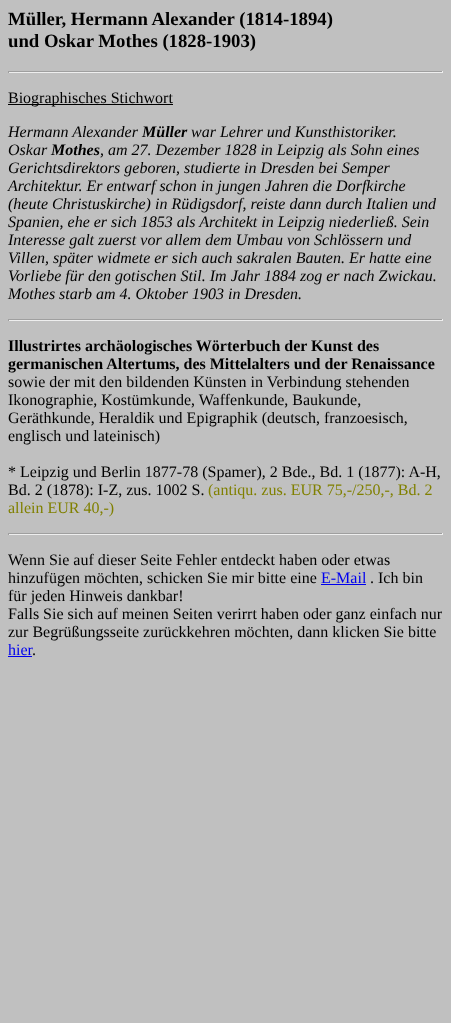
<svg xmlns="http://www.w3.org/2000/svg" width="451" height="1023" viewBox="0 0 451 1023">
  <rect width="100%" height="100%" fill="#c0c0c0"/>
  <text x="8" y="25" font-family="Liberation Serif" font-size="18.75" font-weight="bold" fill="#000000">Müller, Hermann Alexander (1814-1894)</text>
  <text x="8" y="47" font-family="Liberation Serif" font-size="18.75" font-weight="bold" fill="#000000">und Oskar Mothes (1828-1903)</text>
  <rect x="8" y="71" width="435" height="1" fill="#9f9f9f"/>
  <rect x="442" y="71" width="1" height="2" fill="#eeeeee"/>
  <rect x="8" y="72" width="435" height="1" fill="#eeeeee"/>
  <rect x="8" y="71" width="1" height="2" fill="#9f9f9f"/>
  <rect x="8" y="104" width="165" height="1" fill="#000000"/>
  <text x="8" y="103" font-family="Liberation Serif" font-size="16" fill="#000000">Biographisches Stichwort</text>
  <text x="8" y="137" font-family="Liberation Serif" font-size="16" font-style="italic" fill="#000000">Hermann Alexander</text>
  <text x="142" y="137" font-family="Liberation Serif" font-size="16" font-weight="bold" font-style="italic" fill="#000000">Müller</text>
  <text x="191" y="137" font-family="Liberation Serif" font-size="16" font-style="italic" fill="#000000">war Lehrer und Kunsthistoriker.</text>
  <text x="8" y="155" font-family="Liberation Serif" font-size="16" font-style="italic" fill="#000000">Oskar</text>
  <text x="51" y="155" font-family="Liberation Serif" font-size="16" font-weight="bold" font-style="italic" fill="#000000">Mothes</text>
  <text x="100" y="155" font-family="Liberation Serif" font-size="16" font-style="italic" fill="#000000">, am 27. Dezember 1828 in Leipzig als Sohn eines</text>
  <text x="8" y="173" font-family="Liberation Serif" font-size="16" font-style="italic" fill="#000000">Gerichtsdirektors geboren, studierte in Dresden bei Semper</text>
  <text x="8" y="191" font-family="Liberation Serif" font-size="16" font-style="italic" fill="#000000">Architektur. Er entwarf schon in jungen Jahren die Dorfkirche</text>
  <text x="8" y="209" font-family="Liberation Serif" font-size="16" font-style="italic" fill="#000000">(heute Christuskirche) in Rüdigsdorf, reiste dann durch Italien und</text>
  <text x="8" y="227" font-family="Liberation Serif" font-size="16" font-style="italic" fill="#000000">Spanien, ehe er sich 1853 als Architekt in Leipzig niederließ. Sein</text>
  <text x="8" y="245" font-family="Liberation Serif" font-size="16" font-style="italic" fill="#000000">Interesse galt zuerst vor allem dem Umbau von Schlössern und</text>
  <text x="8" y="263" font-family="Liberation Serif" font-size="16" font-style="italic" fill="#000000">Villen, später widmete er sich auch sakralen Bauten. Er hatte eine</text>
  <text x="8" y="281" font-family="Liberation Serif" font-size="16" font-style="italic" fill="#000000">Vorliebe für den gotischen Stil. Im Jahr 1884 zog er nach Zwickau.</text>
  <text x="8" y="299" font-family="Liberation Serif" font-size="16" font-style="italic" fill="#000000">Mothes starb am 4. Oktober 1903 in Dresden.</text>
  <rect x="8" y="319" width="435" height="1" fill="#9f9f9f"/>
  <rect x="442" y="319" width="1" height="2" fill="#eeeeee"/>
  <rect x="8" y="320" width="435" height="1" fill="#eeeeee"/>
  <rect x="8" y="319" width="1" height="2" fill="#9f9f9f"/>
  <text x="8" y="351" font-family="Liberation Serif" font-size="16" font-weight="bold" fill="#000000">Illustrirtes archäologisches Wörterbuch der Kunst des</text>
  <text x="8" y="369" font-family="Liberation Serif" font-size="16" font-weight="bold" fill="#000000">germanischen Altertums, des Mittelalters und der Renaissance</text>
  <text x="8" y="387" font-family="Liberation Serif" font-size="16" fill="#000000">sowie der mit den bildenden Künsten in Verbindung stehenden</text>
  <text x="8" y="405" font-family="Liberation Serif" font-size="16" fill="#000000">Ikonographie, Kostümkunde, Waffenkunde, Baukunde,</text>
  <text x="8" y="423" font-family="Liberation Serif" font-size="16" fill="#000000">Geräthkunde, Heraldik und Epigraphik (deutsch, franzoesisch,</text>
  <text x="8" y="441" font-family="Liberation Serif" font-size="16" fill="#000000">englisch und lateinisch)</text>
  <text x="8" y="477" font-family="Liberation Serif" font-size="16" fill="#000000">* Leipzig und Berlin 1877-78 (Spamer), 2 Bde., Bd. 1 (1877): A-H,</text>
  <text x="8" y="495" font-family="Liberation Serif" font-size="16" fill="#000000">Bd. 2 (1878): I-Z, zus. 1002 S.</text>
  <text x="208" y="495" font-family="Liberation Serif" font-size="16" fill="#808000">(antiqu. zus. EUR 75,-/250,-, Bd. 2</text>
  <text x="8" y="513" font-family="Liberation Serif" font-size="16" fill="#808000">allein EUR 40,-)</text>
  <rect x="8" y="533" width="435" height="1" fill="#9f9f9f"/>
  <rect x="442" y="533" width="1" height="2" fill="#eeeeee"/>
  <rect x="8" y="534" width="435" height="1" fill="#eeeeee"/>
  <rect x="8" y="533" width="1" height="2" fill="#9f9f9f"/>
  <text x="8" y="565" font-family="Liberation Serif" font-size="16" fill="#000000">Wenn Sie auf dieser Seite Fehler entdeckt haben oder etwas</text>
  <text x="8" y="583" font-family="Liberation Serif" font-size="16" fill="#000000">hinzufügen möchten, schicken Sie mir bitte eine</text>
  <text x="321" y="583" font-family="Liberation Serif" font-size="16" fill="#0000ee">E-Mail</text>
  <rect x="321" y="584" width="45" height="1" fill="#0000ee"/>
  <text x="370" y="583" font-family="Liberation Serif" font-size="16" fill="#000000">. Ich bin</text>
  <text x="8" y="601" font-family="Liberation Serif" font-size="16" fill="#000000">für jeden Hinweis dankbar!</text>
  <text x="8" y="619" font-family="Liberation Serif" font-size="16" fill="#000000">Falls Sie sich auf meinen Seiten verirrt haben oder ganz einfach nur</text>
  <text x="8" y="637" font-family="Liberation Serif" font-size="16" fill="#000000">zur Begrüßungsseite zurückkehren möchten, dann klicken Sie bitte</text>
  <text x="8" y="655" font-family="Liberation Serif" font-size="16" fill="#0000ee">hier</text>
  <rect x="8" y="656" width="24" height="1" fill="#0000ee"/>
  <text x="32" y="655" font-family="Liberation Serif" font-size="16" fill="#000000">.</text>
</svg>
